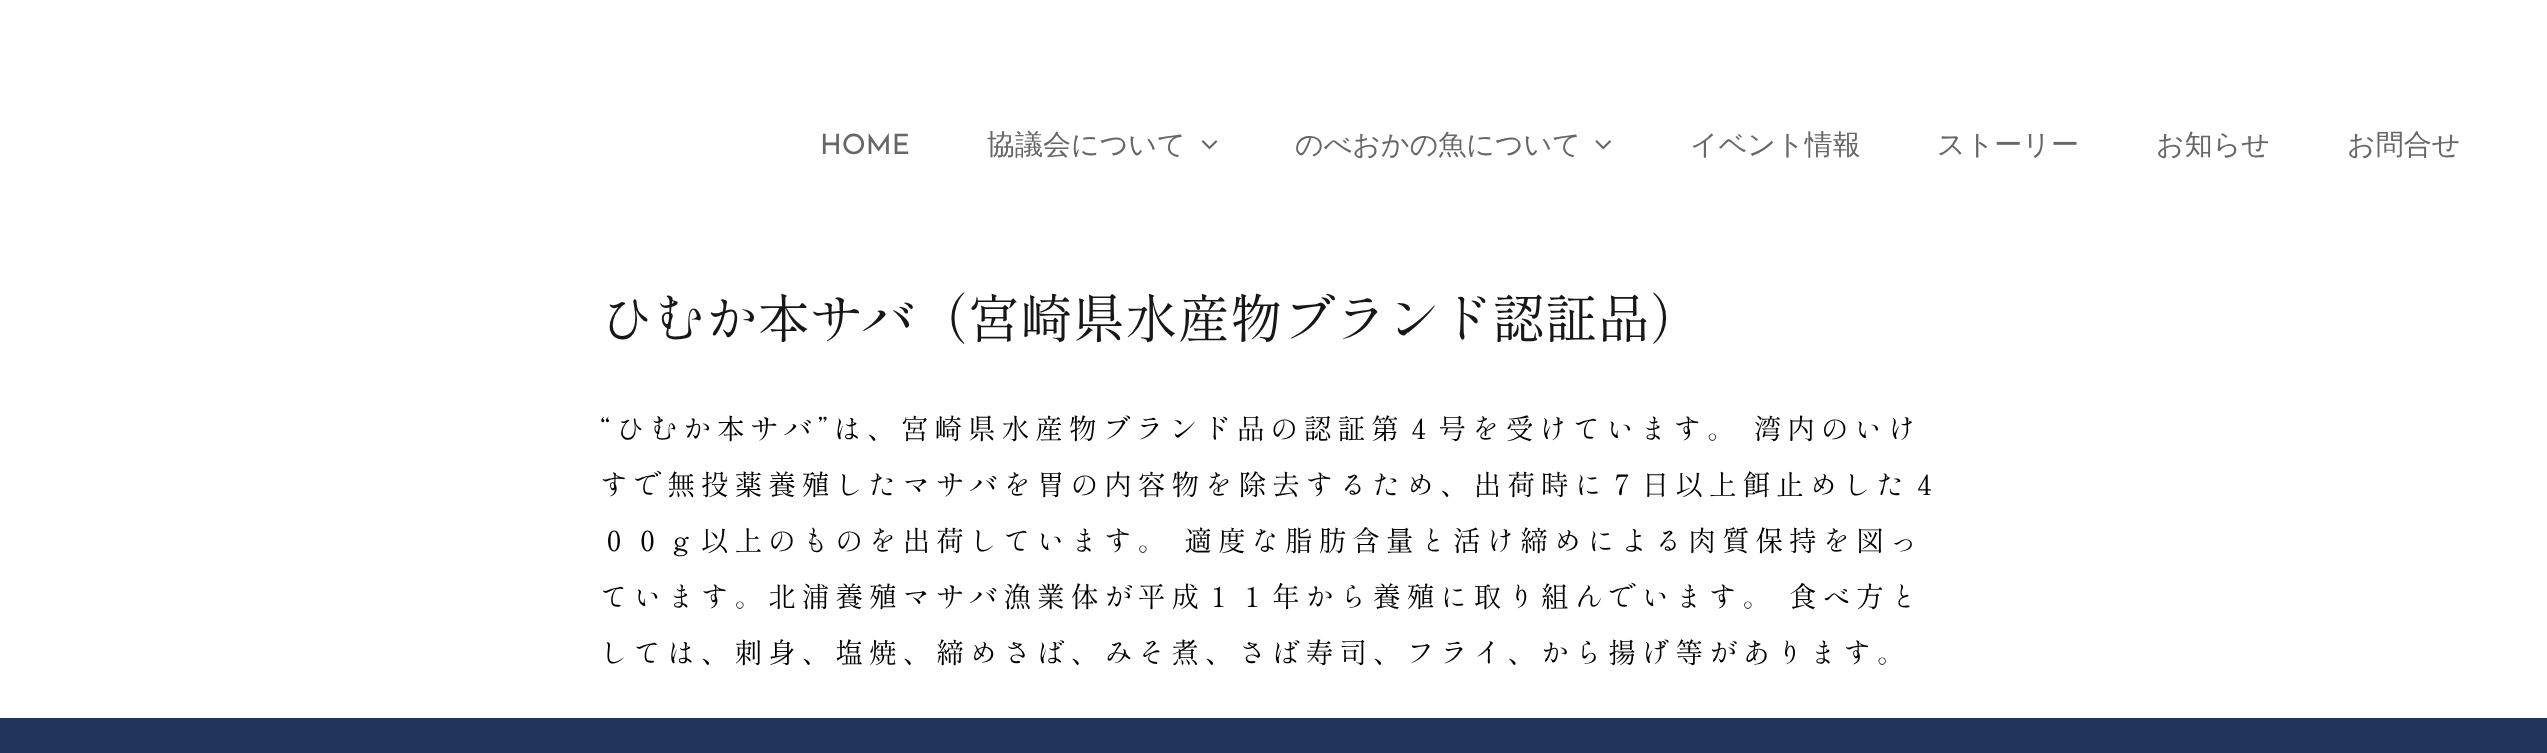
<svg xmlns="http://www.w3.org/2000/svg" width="2547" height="753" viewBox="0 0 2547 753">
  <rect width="100%" height="100%" fill="#ffffff"/>
  <text x="820" y="154" font-family="Josefin Sans" font-size="28" fill="#676767">HOME</text>
  <text x="987" y="154" font-family="WenQuanYi Zen Hei" font-size="28" font-weight="500" fill="#676767">協議会について</text>
  <image x="1201" y="140" width="17" height="10" href="img1.png"/>
  <text x="1295" y="154" font-family="WenQuanYi Zen Hei" font-size="28" font-weight="500" fill="#676767">のべおかの魚について</text>
  <image x="1595" y="140" width="16" height="10" href="img2.png"/>
  <text x="1690" y="154" font-family="WenQuanYi Zen Hei" font-size="28" font-weight="500" fill="#676767">イベント情報</text>
  <text x="1937" y="154" font-family="WenQuanYi Zen Hei" font-size="28" font-weight="500" fill="#676767">ストーリー</text>
  <text x="2156" y="154" font-family="WenQuanYi Zen Hei" font-size="28" font-weight="500" fill="#676767">お知らせ</text>
  <text x="2347" y="154" font-family="WenQuanYi Zen Hei" font-size="28" font-weight="500" fill="#676767">お問合せ</text>
  <text x="600" y="338" font-family="Shippori Mincho" font-size="52.5" fill="#171717">ひむか本サバ（宮崎県水産物ブランド認証品）</text>
  <text x="600" y="439" font-family="Shippori Mincho" font-size="28" letter-spacing="5.6" fill="#000000">“ひむか本サバ”は、宮崎県水産物ブランド品の認証第４号を受けています。 湾内のいけ</text>
  <text x="600" y="495" font-family="Shippori Mincho" font-size="28" letter-spacing="5.6" fill="#000000">すで無投薬養殖したマサバを胃の内容物を除去するため、出荷時に７日以上餌止めした４</text>
  <text x="600" y="551" font-family="Shippori Mincho" font-size="28" letter-spacing="5.6" fill="#000000">００ｇ以上のものを出荷しています。 適度な脂肪含量と活け締めによる肉質保持を図っ</text>
  <text x="600" y="607" font-family="Shippori Mincho" font-size="28" letter-spacing="5.6" fill="#000000">ています。北浦養殖マサバ漁業体が平成１１年から養殖に取り組んでいます。 食べ方と</text>
  <text x="600" y="663" font-family="Shippori Mincho" font-size="28" letter-spacing="5.6" fill="#000000">しては、刺身、塩焼、締めさば、みそ煮、さば寿司、フライ、から揚げ等があります。</text>
  <rect x="0" y="718" width="2547" height="35" fill="#20345c"/>
</svg>
